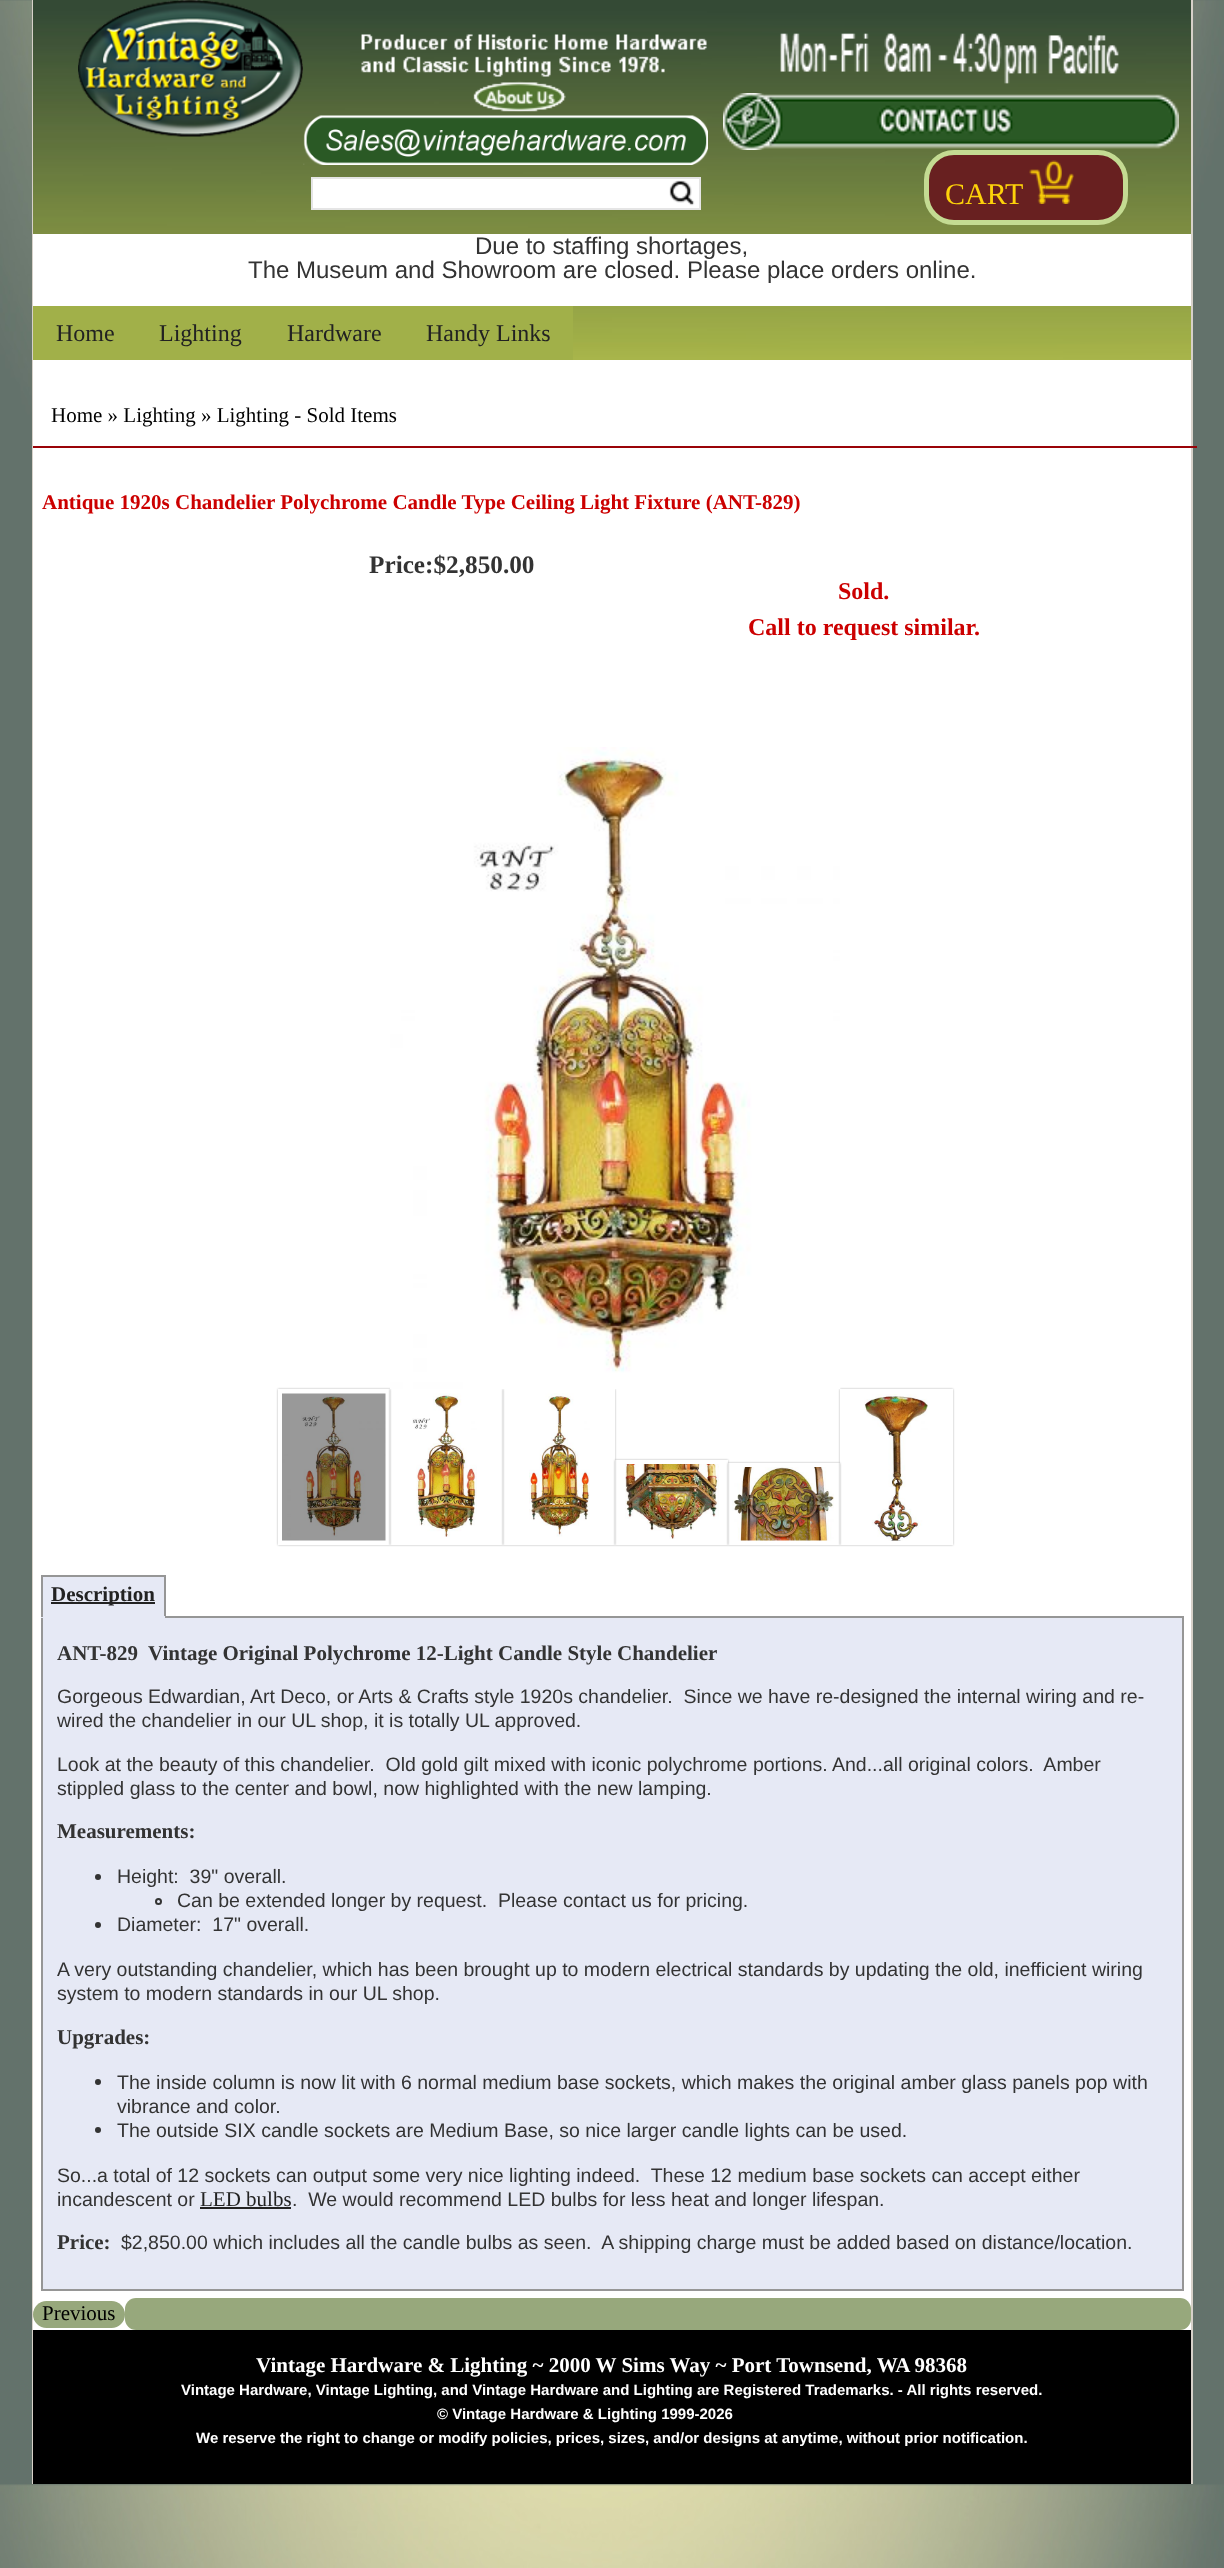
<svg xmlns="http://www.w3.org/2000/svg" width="1224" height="2568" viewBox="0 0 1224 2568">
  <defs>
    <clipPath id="clip1"><path d="M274 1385H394V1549H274ZM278 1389H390V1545H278Z" clip-rule="evenodd"/></clipPath>
    <filter id="blur1" x="-50%" y="-200%" width="200%" height="500%"><feGaussianBlur stdDeviation="1"/></filter>
    <clipPath id="clip2"><path d="M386 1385H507V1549H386ZM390 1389H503V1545H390Z" clip-rule="evenodd"/></clipPath>
    <clipPath id="clip3"><path d="M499 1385H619V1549H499ZM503 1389H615V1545H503Z" clip-rule="evenodd"/></clipPath>
    <clipPath id="clip4"><path d="M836 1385H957V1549H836ZM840 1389H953V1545H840Z" clip-rule="evenodd"/></clipPath>
    <clipPath id="clip5"><path d="M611 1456H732V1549H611ZM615 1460H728V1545H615Z" clip-rule="evenodd"/></clipPath>
    <clipPath id="clip6"><path d="M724 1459H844V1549H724ZM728 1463H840V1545H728Z" clip-rule="evenodd"/></clipPath>
  </defs>
  <rect width="100%" height="100%" fill="#ffffff"/>
  <image x="0" y="0" width="1224" height="2568" href="img1.png"/>
  <rect x="1191" y="0" width="2" height="2484" fill="#d7d1c9"/>
  <rect x="32" y="0" width="1" height="2484" fill="#d7d1c9"/>
  <image x="33" y="0" width="1158" height="360" href="img2.png"/>
  <image x="78" y="0" width="225" height="137" href="img3.png"/>
  <image x="361" y="34" width="346" height="78" href="img4.png"/>
  <image x="303" y="115" width="405" height="50" href="img5.png"/>
  <rect x="312" y="178" width="388" height="31" fill="#ffffff" stroke="#e5e5e5" stroke-width="2"/>
  <image x="669" y="180" width="26" height="26" href="img6.png"/>
  <image x="780" y="33" width="339" height="51" href="img7.png"/>
  <image x="723" y="93" width="456" height="57" href="img8.png"/>
  <rect x="926.5" y="152.5" width="199" height="70" rx="27.5" fill="#682020" stroke="#c4db92" stroke-width="5"/>
  <text x="945" y="204" font-family="Liberation Serif" font-size="30" fill="#fdd20a">CART</text>
  <image x="1029" y="169" width="17" height="35" href="img9.png"/>
  <image x="1045" y="160" width="17" height="39" href="img10.png"/>
  <image x="1062" y="173" width="12" height="31" href="img11.png"/>
  <rect x="33" y="234" width="1158" height="72" fill="#ffffff"/>
  <text x="475" y="254" font-family="Liberation Sans" font-size="24" fill="#333333">Due to staffing shortages,</text>
  <text x="248" y="278" font-family="Liberation Sans" font-size="24" fill="#333333">The Museum and Showroom are closed. Please place orders online.</text>
  <rect x="33" y="306" width="540" height="54" fill="#a1b049"/>
  <text x="56" y="341" font-family="Liberation Serif" font-size="24" fill="#222222">Home</text>
  <text x="159" y="341" font-family="Liberation Serif" font-size="24" fill="#222222">Lighting</text>
  <text x="287" y="341" font-family="Liberation Serif" font-size="24" fill="#222222">Hardware</text>
  <text x="426" y="341" font-family="Liberation Serif" font-size="24" fill="#222222">Handy Links</text>
  <rect x="33" y="360" width="1158" height="1970" fill="#ffffff"/>
  <rect x="33" y="446" width="1164" height="2" fill="#9a0308"/>
  <text x="51" y="422" font-family="Liberation Serif" font-size="21" fill="#000000">Home » Lighting » Lighting - Sold Items</text>
  <text x="42" y="509" font-family="Liberation Serif" font-size="21" font-weight="bold" fill="#cc0000">Antique 1920s Chandelier Polychrome Candle Type Ceiling Light Fixture (ANT-829)</text>
  <text x="369" y="573" font-family="Liberation Serif" font-size="25.25" font-weight="bold" fill="#333333">Price:$2,850.00</text>
  <text x="838" y="599" font-family="Liberation Serif" font-size="24" font-weight="bold" fill="#cc0000">Sold.</text>
  <text x="748" y="635" font-family="Liberation Serif" font-size="24" font-weight="bold" fill="#cc0000">Call to request similar.</text>
  <g clip-path="url(#clip1)">
    <rect x="278" y="1389" width="112" height="156" fill="#000000" fill-opacity="0.3" filter="url(#blur1)"/>
  </g>
  <g clip-path="url(#clip2)">
    <rect x="390" y="1389" width="113" height="156" fill="#000000" fill-opacity="0.3" filter="url(#blur1)"/>
  </g>
  <g clip-path="url(#clip3)">
    <rect x="503" y="1389" width="112" height="156" fill="#000000" fill-opacity="0.3" filter="url(#blur1)"/>
  </g>
  <g clip-path="url(#clip4)">
    <rect x="840" y="1389" width="113" height="156" fill="#000000" fill-opacity="0.3" filter="url(#blur1)"/>
  </g>
  <image x="390" y="747" width="450" height="642" href="img12.png"/>
  <image x="282" y="1393" width="104" height="148" href="img13.png"/>
  <image x="412" y="1393" width="65" height="144" href="img14.png"/>
  <image x="529" y="1393" width="61" height="144" href="img15.png"/>
  <g clip-path="url(#clip5)">
    <rect x="615" y="1460" width="113" height="85" fill="#000000" fill-opacity="0.3" filter="url(#blur1)"/>
  </g>
  <image x="625" y="1464" width="94" height="75" href="img16.png"/>
  <g clip-path="url(#clip6)">
    <rect x="728" y="1463" width="112" height="82" fill="#000000" fill-opacity="0.3" filter="url(#blur1)"/>
  </g>
  <image x="732" y="1467" width="102" height="74" href="img17.png"/>
  <image x="864" y="1394" width="64" height="147" href="img18.png"/>
  <rect x="43" y="1577" width="121" height="39" fill="#e6e9f5"/>
  <rect x="41" y="1575" width="124" height="2" fill="#969696"/>
  <rect x="42" y="1617" width="1141" height="673" fill="#e6e9f5" stroke="#969696" stroke-width="2"/>
  <rect x="164" y="1575" width="2" height="42" fill="#969696"/>
  <rect x="41" y="1616" width="124" height="2" fill="#e6e9f5"/>
  <rect x="41" y="1575" width="2" height="42" fill="#969696"/>
  <rect x="51" y="1602" width="104" height="2" fill="#222222"/>
  <text x="51" y="1601" font-family="Liberation Serif" font-size="21" font-weight="bold" fill="#222222">Description</text>
  <text x="57" y="1660" font-family="Liberation Serif" font-size="21" font-weight="bold" fill="#333333">ANT-829</text>
  <text x="148" y="1660" font-family="Liberation Serif" font-size="21" font-weight="bold" fill="#333333">Vintage Original Polychrome 12-Light Candle Style Chandelier</text>
  <text x="57" y="1703" font-family="Liberation Sans" font-size="19.5" fill="#333333" xml:space="preserve">Gorgeous Edwardian, Art Deco, or Arts &amp; Crafts style 1920s chandelier.  Since we have re-designed the internal wiring and re-</text>
  <text x="57" y="1727" font-family="Liberation Sans" font-size="19.5" fill="#333333">wired the chandelier in our UL shop, it is totally UL approved.</text>
  <text x="57" y="1771" font-family="Liberation Sans" font-size="19.5" fill="#333333" xml:space="preserve">Look at the beauty of this chandelier.  Old gold gilt mixed with iconic polychrome portions. And...all original colors.  Amber</text>
  <text x="57" y="1795" font-family="Liberation Sans" font-size="19.5" fill="#333333">stippled glass to the center and bowl, now highlighted with the new lamping.</text>
  <text x="57" y="1838" font-family="Liberation Serif" font-size="21" font-weight="bold" fill="#333333">Measurements:</text>
  <circle cx="98" cy="1877" r="3" fill="#333333"/>
  <text x="117" y="1883" font-family="Liberation Sans" font-size="19.5" fill="#333333" xml:space="preserve">Height:  39" overall.</text>
  <circle cx="158.5" cy="1901.5" r="2.5" fill="none" stroke="#333333" stroke-width="2"/>
  <text x="177" y="1907" font-family="Liberation Sans" font-size="19.5" fill="#333333" xml:space="preserve">Can be extended longer by request.  Please contact us for pricing.</text>
  <circle cx="98" cy="1925" r="3" fill="#333333"/>
  <text x="117" y="1931" font-family="Liberation Sans" font-size="19.5" fill="#333333" xml:space="preserve">Diameter:  17" overall.</text>
  <text x="57" y="1976" font-family="Liberation Sans" font-size="19.5" fill="#333333">A very outstanding chandelier, which has been brought up to modern electrical standards by updating the old, inefficient wiring</text>
  <text x="57" y="2000" font-family="Liberation Sans" font-size="19.5" fill="#333333">system to modern standards in our UL shop.</text>
  <text x="57" y="2044" font-family="Liberation Serif" font-size="21" font-weight="bold" fill="#333333">Upgrades:</text>
  <circle cx="98" cy="2082" r="3" fill="#333333"/>
  <text x="117" y="2089" font-family="Liberation Sans" font-size="19.5" fill="#333333">The inside column is now lit with 6 normal medium base sockets, which makes the original amber glass panels pop with</text>
  <text x="117" y="2113" font-family="Liberation Sans" font-size="19.5" fill="#333333">vibrance and color.</text>
  <circle cx="98" cy="2130" r="3" fill="#333333"/>
  <text x="117" y="2137" font-family="Liberation Sans" font-size="19.5" fill="#333333">The outside SIX candle sockets are Medium Base, so nice larger candle lights can be used.</text>
  <text x="57" y="2182" font-family="Liberation Sans" font-size="19.5" fill="#333333" xml:space="preserve">So...a total of 12 sockets can output some very nice lighting indeed.  These 12 medium base sockets can accept either</text>
  <text x="57" y="2206" font-family="Liberation Sans" font-size="19.5" fill="#333333">incandescent or</text>
  <text x="200" y="2206" font-family="Liberation Serif" font-size="21" fill="#222222">LED bulbs</text>
  <rect x="200" y="2207" width="91" height="2" fill="#222222"/>
  <text x="292" y="2206" font-family="Liberation Sans" font-size="19.5" fill="#333333" xml:space="preserve">.  We would recommend LED bulbs for less heat and longer lifespan.</text>
  <text x="57" y="2249" font-family="Liberation Serif" font-size="21" font-weight="bold" fill="#333333">Price:</text>
  <text x="121" y="2249" font-family="Liberation Sans" font-size="19.5" fill="#333333" xml:space="preserve">$2,850.00 which includes all the candle bulbs as seen.  A shipping charge must be added based on distance/location.</text>
  <rect x="33" y="2301" width="92" height="27" rx="13.5" fill="#97a87c"/>
  <text x="42" y="2320" font-family="Liberation Serif" font-size="21" fill="#000000">Previous</text>
  <rect x="125" y="2298" width="1066" height="32" rx="11" fill="#97a87c"/>
  <rect x="33" y="2330" width="1158" height="154" fill="#000000"/>
  <text x="256" y="2372" font-family="Liberation Serif" font-size="21" font-weight="bold" fill="#ffffff">Vintage Hardware &amp; Lighting ~ 2000 W Sims Way ~ Port Townsend, WA 98368</text>
  <text x="181" y="2395" font-family="Liberation Sans" font-size="15" font-weight="bold" fill="#ffffff">Vintage Hardware, Vintage Lighting, and Vintage Hardware and Lighting are Registered Trademarks. - All rights reserved.</text>
  <text x="437" y="2419" font-family="Liberation Sans" font-size="15" font-weight="bold" fill="#ffffff">© Vintage Hardware &amp; Lighting 1999-2026</text>
  <text x="196" y="2443" font-family="Liberation Sans" font-size="15" font-weight="bold" fill="#ffffff">We reserve the right to change or modify policies, prices, sizes, and/or designs at anytime, without prior notification.</text>
</svg>
